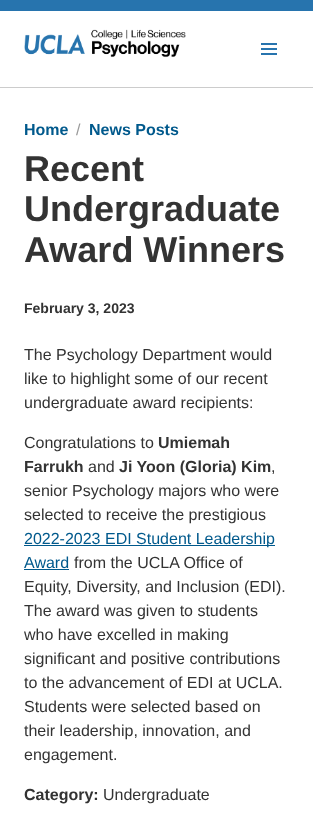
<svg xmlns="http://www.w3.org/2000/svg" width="313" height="817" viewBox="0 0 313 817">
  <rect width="100%" height="100%" fill="#ffffff"/>
  <rect x="0" y="0" width="313" height="11" fill="#2774ae"/>
  <rect x="0" y="87" width="313" height="1" fill="#cccccc"/>
  <image x="24" y="29" width="162" height="29" href="img1.png"/>
  <rect x="261" y="48" width="16" height="2" fill="#2774ae"/>
  <rect x="261" y="43" width="16" height="2" fill="#2774ae"/>
  <rect x="261" y="53" width="16" height="2" fill="#2774ae"/>
  <text x="24" y="135" font-family="Liberation Sans" font-size="16" font-weight="bold" fill="#00598c">Home</text>
  <text x="76" y="135" font-family="Liberation Sans" font-size="16" fill="#999999">/</text>
  <text x="89" y="135" font-family="Liberation Sans" font-size="16" font-weight="bold" fill="#00598c">News Posts</text>
  <text x="24" y="181" font-family="Liberation Sans" font-size="36" font-weight="bold" fill="#333333">Recent</text>
  <text x="24" y="221" font-family="Liberation Sans" font-size="36" font-weight="bold" fill="#333333">Undergraduate</text>
  <text x="24" y="262" font-family="Liberation Sans" font-size="36" font-weight="bold" fill="#333333">Award Winners</text>
  <text x="24" y="313" font-family="Liberation Sans" font-size="14" font-weight="bold" fill="#333333">February 3, 2023</text>
  <text x="24" y="360" font-family="Liberation Sans" font-size="16" fill="#333333">The Psychology Department would</text>
  <text x="24" y="384" font-family="Liberation Sans" font-size="16" fill="#333333">like to highlight some of our recent</text>
  <text x="24" y="408" font-family="Liberation Sans" font-size="16" fill="#333333">undergraduate award recipients:</text>
  <text x="24" y="448" font-family="Liberation Sans" font-size="16" fill="#333333">Congratulations to</text>
  <text x="158" y="448" font-family="Liberation Sans" font-size="16" font-weight="bold" fill="#333333">Umiemah</text>
  <text x="24" y="472" font-family="Liberation Sans" font-size="16" font-weight="bold" fill="#333333">Farrukh</text>
  <text x="88" y="472" font-family="Liberation Sans" font-size="16" fill="#333333">and</text>
  <text x="119" y="472" font-family="Liberation Sans" font-size="16" font-weight="bold" fill="#333333">Ji Yoon (Gloria) Kim</text>
  <text x="271" y="472" font-family="Liberation Sans" font-size="16" fill="#333333">,</text>
  <text x="24" y="496" font-family="Liberation Sans" font-size="16" fill="#333333">senior Psychology majors who were</text>
  <text x="24" y="520" font-family="Liberation Sans" font-size="16" fill="#333333">selected to receive the prestigious</text>
  <rect x="24" y="545" width="251" height="1" fill="#00598c"/>
  <text x="24" y="544" font-family="Liberation Sans" font-size="16" fill="#00598c">2022-2023 EDI Student Leadership</text>
  <text x="24" y="568" font-family="Liberation Sans" font-size="16" fill="#00598c">Award</text>
  <rect x="24" y="569" width="45" height="1" fill="#00598c"/>
  <text x="74" y="568" font-family="Liberation Sans" font-size="16" fill="#333333">from the UCLA Office of</text>
  <text x="24" y="592" font-family="Liberation Sans" font-size="16" fill="#333333">Equity, Diversity, and Inclusion (EDI).</text>
  <text x="24" y="616" font-family="Liberation Sans" font-size="16" fill="#333333">The award was given to students</text>
  <text x="24" y="640" font-family="Liberation Sans" font-size="16" fill="#333333">who have excelled in making</text>
  <text x="24" y="664" font-family="Liberation Sans" font-size="16" fill="#333333">significant and positive contributions</text>
  <text x="24" y="688" font-family="Liberation Sans" font-size="16" fill="#333333">to the advancement of EDI at UCLA.</text>
  <text x="24" y="712" font-family="Liberation Sans" font-size="16" fill="#333333">Students were selected based on</text>
  <text x="24" y="736" font-family="Liberation Sans" font-size="16" fill="#333333">their leadership, innovation, and</text>
  <text x="24" y="760" font-family="Liberation Sans" font-size="16" fill="#333333">engagement.</text>
  <text x="24" y="800" font-family="Liberation Sans" font-size="16" font-weight="bold" fill="#333333">Category:</text>
  <text x="103" y="800" font-family="Liberation Sans" font-size="16" fill="#333333">Undergraduate</text>
</svg>
